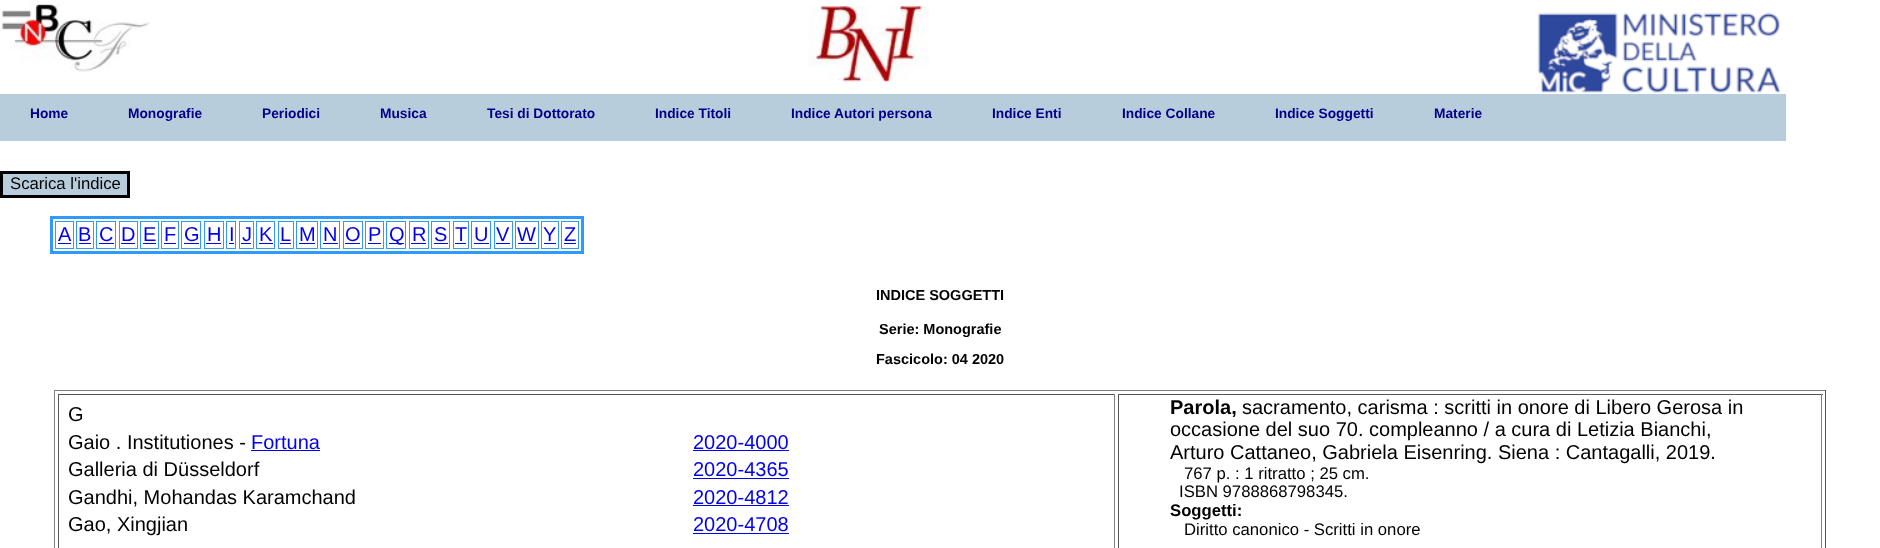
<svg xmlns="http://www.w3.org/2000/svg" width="1880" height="548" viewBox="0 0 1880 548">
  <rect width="100%" height="100%" fill="#ffffff"/>
  <image x="0" y="0" width="150" height="72" href="img1.png"/>
  <image x="808" y="6" width="121" height="76" href="img2.png"/>
  <image x="1537" y="12" width="244" height="81" href="img3.png"/>
  <rect x="0" y="94" width="1786" height="47" fill="#b8cddb"/>
  <text x="30" y="118" font-family="Liberation Sans" font-size="13.75" font-weight="bold" fill="#00008b">Home</text>
  <text x="128" y="118" font-family="Liberation Sans" font-size="13.75" font-weight="bold" fill="#00008b">Monografie</text>
  <text x="262" y="118" font-family="Liberation Sans" font-size="13.75" font-weight="bold" fill="#00008b">Periodici</text>
  <text x="380" y="118" font-family="Liberation Sans" font-size="13.75" font-weight="bold" fill="#00008b">Musica</text>
  <text x="487" y="118" font-family="Liberation Sans" font-size="13.75" font-weight="bold" fill="#00008b">Tesi di Dottorato</text>
  <text x="655" y="118" font-family="Liberation Sans" font-size="13.75" font-weight="bold" fill="#00008b">Indice Titoli</text>
  <text x="791" y="118" font-family="Liberation Sans" font-size="13.75" font-weight="bold" fill="#00008b">Indice Autori persona</text>
  <text x="992" y="118" font-family="Liberation Sans" font-size="13.75" font-weight="bold" fill="#00008b">Indice Enti</text>
  <text x="1122" y="118" font-family="Liberation Sans" font-size="13.75" font-weight="bold" fill="#00008b">Indice Collane</text>
  <text x="1275" y="118" font-family="Liberation Sans" font-size="13.75" font-weight="bold" fill="#00008b">Indice Soggetti</text>
  <text x="1434" y="118" font-family="Liberation Sans" font-size="13.75" font-weight="bold" fill="#00008b">Materie</text>
  <rect x="1.5" y="172.5" width="127" height="24" fill="#b8cddb" stroke="#000000" stroke-width="3"/>
  <text x="10" y="189" font-family="Liberation Sans" font-size="16.7" fill="#000000">Scarica l'indice</text>
  <rect x="51.5" y="217.5" width="531" height="35" fill="none" stroke="#2e9afe" stroke-width="3"/>
  <rect x="55.5" y="221.5" width="18" height="27" fill="none" stroke="#2e9afe"/>
  <text x="58" y="241" font-family="Liberation Sans" font-size="20" fill="#0000ee">A</text>
  <rect x="58" y="243" width="13" height="1" fill="#0000ee"/>
  <rect x="76.5" y="221.5" width="17" height="27" fill="none" stroke="#2e9afe"/>
  <text x="78" y="241" font-family="Liberation Sans" font-size="20" fill="#0000ee">B</text>
  <rect x="79" y="243" width="12" height="1" fill="#0000ee"/>
  <rect x="96.5" y="221.5" width="19" height="27" fill="none" stroke="#2e9afe"/>
  <text x="99" y="241" font-family="Liberation Sans" font-size="20" fill="#0000ee">C</text>
  <rect x="99" y="243" width="15" height="1" fill="#0000ee"/>
  <rect x="119.5" y="221.5" width="18" height="27" fill="none" stroke="#2e9afe"/>
  <text x="121" y="241" font-family="Liberation Sans" font-size="20" fill="#0000ee">D</text>
  <rect x="121" y="243" width="14" height="1" fill="#0000ee"/>
  <rect x="140.5" y="221.5" width="18" height="27" fill="none" stroke="#2e9afe"/>
  <text x="143" y="241" font-family="Liberation Sans" font-size="20" fill="#0000ee">E</text>
  <rect x="143" y="243" width="13" height="1" fill="#0000ee"/>
  <rect x="161.5" y="221.5" width="17" height="27" fill="none" stroke="#2e9afe"/>
  <text x="164" y="241" font-family="Liberation Sans" font-size="20" fill="#0000ee">F</text>
  <rect x="164" y="243" width="12" height="1" fill="#0000ee"/>
  <rect x="181.5" y="221.5" width="19" height="27" fill="none" stroke="#2e9afe"/>
  <text x="184" y="241" font-family="Liberation Sans" font-size="20" fill="#0000ee">G</text>
  <rect x="184" y="243" width="15" height="1" fill="#0000ee"/>
  <rect x="204.5" y="221.5" width="19" height="27" fill="none" stroke="#2e9afe"/>
  <text x="207" y="241" font-family="Liberation Sans" font-size="20" fill="#0000ee">H</text>
  <rect x="206" y="243" width="15" height="1" fill="#0000ee"/>
  <rect x="226.5" y="221.5" width="9" height="27" fill="none" stroke="#2e9afe"/>
  <text x="229" y="241" font-family="Liberation Sans" font-size="20" fill="#0000ee">I</text>
  <rect x="229" y="243" width="5" height="1" fill="#0000ee"/>
  <rect x="239.5" y="221.5" width="14" height="27" fill="none" stroke="#2e9afe"/>
  <text x="242" y="241" font-family="Liberation Sans" font-size="20" fill="#0000ee">J</text>
  <rect x="241" y="243" width="10" height="1" fill="#0000ee"/>
  <rect x="256.5" y="221.5" width="18" height="27" fill="none" stroke="#2e9afe"/>
  <text x="259" y="241" font-family="Liberation Sans" font-size="20" fill="#0000ee">K</text>
  <rect x="259" y="243" width="14" height="1" fill="#0000ee"/>
  <rect x="278.5" y="221.5" width="15" height="27" fill="none" stroke="#2e9afe"/>
  <text x="280" y="241" font-family="Liberation Sans" font-size="20" fill="#0000ee">L</text>
  <rect x="280" y="243" width="11" height="1" fill="#0000ee"/>
  <rect x="296.5" y="221.5" width="21" height="27" fill="none" stroke="#2e9afe"/>
  <text x="299" y="241" font-family="Liberation Sans" font-size="20" fill="#0000ee">M</text>
  <rect x="299" y="243" width="16" height="1" fill="#0000ee"/>
  <rect x="320.5" y="221.5" width="19" height="27" fill="none" stroke="#2e9afe"/>
  <text x="323" y="241" font-family="Liberation Sans" font-size="20" fill="#0000ee">N</text>
  <rect x="323" y="243" width="15" height="1" fill="#0000ee"/>
  <rect x="343.5" y="221.5" width="19" height="27" fill="none" stroke="#2e9afe"/>
  <text x="345" y="241" font-family="Liberation Sans" font-size="20" fill="#0000ee">O</text>
  <rect x="345" y="243" width="15" height="1" fill="#0000ee"/>
  <rect x="365.5" y="221.5" width="18" height="27" fill="none" stroke="#2e9afe"/>
  <text x="368" y="241" font-family="Liberation Sans" font-size="20" fill="#0000ee">P</text>
  <rect x="368" y="243" width="13" height="1" fill="#0000ee"/>
  <rect x="386.5" y="221.5" width="19" height="27" fill="none" stroke="#2e9afe"/>
  <rect x="389" y="243" width="15" height="1" fill="#0000ee"/>
  <text x="389" y="241" font-family="Liberation Sans" font-size="20" fill="#0000ee">Q</text>
  <rect x="409.5" y="221.5" width="19" height="27" fill="none" stroke="#2e9afe"/>
  <text x="412" y="241" font-family="Liberation Sans" font-size="20" fill="#0000ee">R</text>
  <rect x="411" y="243" width="15" height="1" fill="#0000ee"/>
  <rect x="431.5" y="221.5" width="18" height="27" fill="none" stroke="#2e9afe"/>
  <text x="434" y="241" font-family="Liberation Sans" font-size="20" fill="#0000ee">S</text>
  <rect x="434" y="243" width="14" height="1" fill="#0000ee"/>
  <rect x="453.5" y="221.5" width="15" height="27" fill="none" stroke="#2e9afe"/>
  <text x="455" y="241" font-family="Liberation Sans" font-size="20" fill="#0000ee">T</text>
  <rect x="455" y="243" width="11" height="1" fill="#0000ee"/>
  <rect x="471.5" y="221.5" width="19" height="27" fill="none" stroke="#2e9afe"/>
  <text x="474" y="241" font-family="Liberation Sans" font-size="20" fill="#0000ee">U</text>
  <rect x="474" y="243" width="15" height="1" fill="#0000ee"/>
  <rect x="494.5" y="221.5" width="18" height="27" fill="none" stroke="#2e9afe"/>
  <text x="496" y="241" font-family="Liberation Sans" font-size="20" fill="#0000ee">V</text>
  <rect x="496" y="243" width="14" height="1" fill="#0000ee"/>
  <rect x="515.5" y="221.5" width="23" height="27" fill="none" stroke="#2e9afe"/>
  <text x="517" y="241" font-family="Liberation Sans" font-size="20" fill="#0000ee">W</text>
  <rect x="518" y="243" width="18" height="1" fill="#0000ee"/>
  <rect x="541.5" y="221.5" width="17" height="27" fill="none" stroke="#2e9afe"/>
  <text x="543" y="241" font-family="Liberation Sans" font-size="20" fill="#0000ee">Y</text>
  <rect x="544" y="243" width="12" height="1" fill="#0000ee"/>
  <rect x="561.5" y="221.5" width="17" height="27" fill="none" stroke="#2e9afe"/>
  <text x="564" y="241" font-family="Liberation Sans" font-size="20" fill="#0000ee">Z</text>
  <rect x="564" y="243" width="12" height="1" fill="#0000ee"/>
  <text x="876" y="300" font-family="Liberation Sans" font-size="14.5" font-weight="bold" fill="#000000">INDICE SOGGETTI</text>
  <text x="879" y="334" font-family="Liberation Sans" font-size="14.5" font-weight="bold" fill="#000000">Serie: Monografie</text>
  <text x="876" y="364" font-family="Liberation Sans" font-size="14.5" font-weight="bold" fill="#000000">Fascicolo: 04 2020</text>
  <rect x="54" y="390" width="1772" height="1" fill="#808080"/>
  <rect x="1825" y="390" width="1" height="158" fill="#555555"/>
  <rect x="54" y="390" width="1" height="158" fill="#808080"/>
  <rect x="58" y="394" width="1057" height="1" fill="#555555"/>
  <rect x="1114" y="394" width="1" height="154" fill="#808080"/>
  <rect x="58" y="394" width="1" height="154" fill="#555555"/>
  <text x="68" y="421" font-family="Liberation Sans" font-size="20" fill="#000000">G</text>
  <text x="68" y="449" font-family="Liberation Sans" font-size="20" fill="#000000">Gaio . Institutiones -</text>
  <text x="251" y="449" font-family="Liberation Sans" font-size="20" fill="#0000ee">Fortuna</text>
  <rect x="251" y="450" width="69" height="1" fill="#0000ee"/>
  <text x="693" y="449" font-family="Liberation Sans" font-size="20" fill="#0000ee">2020-4000</text>
  <rect x="693" y="450" width="96" height="1" fill="#0000ee"/>
  <text x="68" y="476" font-family="Liberation Sans" font-size="20" fill="#000000">Galleria di Düsseldorf</text>
  <text x="693" y="476" font-family="Liberation Sans" font-size="20" fill="#0000ee">2020-4365</text>
  <rect x="693" y="478" width="96" height="1" fill="#0000ee"/>
  <text x="68" y="504" font-family="Liberation Sans" font-size="20" fill="#000000">Gandhi, Mohandas Karamchand</text>
  <text x="693" y="504" font-family="Liberation Sans" font-size="20" fill="#0000ee">2020-4812</text>
  <rect x="693" y="505" width="96" height="1" fill="#0000ee"/>
  <text x="68" y="531" font-family="Liberation Sans" font-size="20" fill="#000000">Gao, Xingjian</text>
  <text x="693" y="531" font-family="Liberation Sans" font-size="20" fill="#0000ee">2020-4708</text>
  <rect x="693" y="533" width="96" height="1" fill="#0000ee"/>
  <rect x="1118" y="394" width="705" height="1" fill="#555555"/>
  <rect x="1821" y="394" width="1" height="154" fill="#808080"/>
  <rect x="1118" y="394" width="1" height="154" fill="#555555"/>
  <text x="1170" y="414" font-family="Liberation Sans" font-size="20" font-weight="bold" fill="#000000">Parola,</text>
  <text x="1242" y="414" font-family="Liberation Sans" font-size="20" fill="#000000">sacramento, carisma : scritti in onore di Libero Gerosa in</text>
  <text x="1170" y="436" font-family="Liberation Sans" font-size="20" fill="#000000">occasione del suo 70. compleanno / a cura di Letizia Bianchi,</text>
  <text x="1170" y="459" font-family="Liberation Sans" font-size="20" fill="#000000">Arturo Cattaneo, Gabriela Eisenring. Siena : Cantagalli, 2019.</text>
  <text x="1184" y="479" font-family="Liberation Sans" font-size="16.7" fill="#000000">767 p. : 1 ritratto ; 25 cm.</text>
  <text x="1179" y="497" font-family="Liberation Sans" font-size="16.7" fill="#000000">ISBN 9788868798345.</text>
  <text x="1170" y="516" font-family="Liberation Sans" font-size="16.7" font-weight="bold" fill="#000000">Soggetti:</text>
  <text x="1184" y="535" font-family="Liberation Sans" font-size="16.7" fill="#000000">Diritto canonico - Scritti in onore</text>
</svg>
